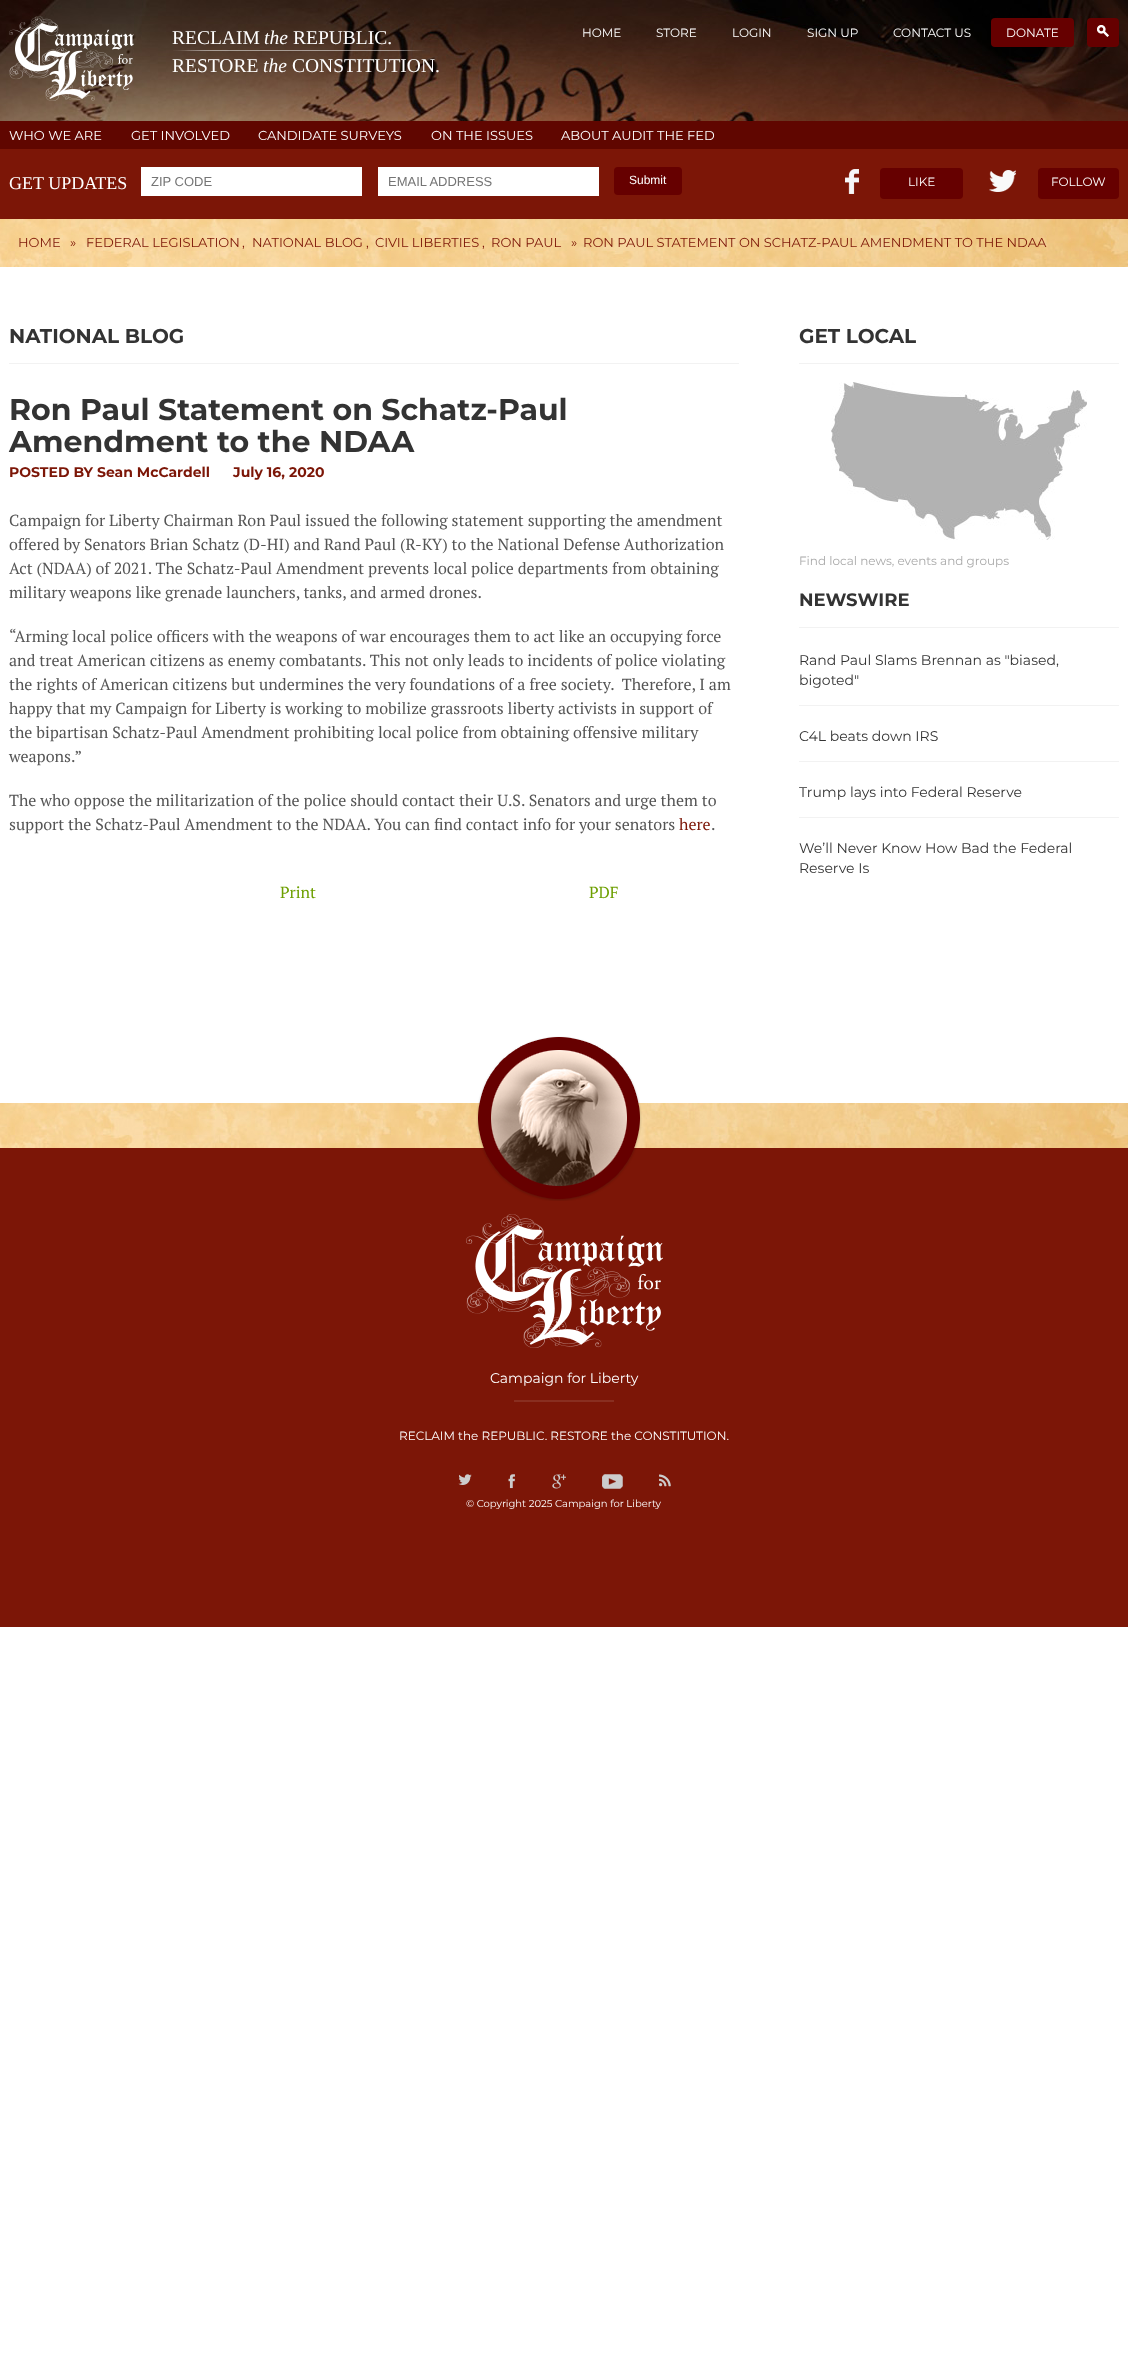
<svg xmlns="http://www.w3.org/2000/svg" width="1128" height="2370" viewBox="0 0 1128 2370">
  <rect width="100%" height="100%" fill="#ffffff"/>
  <image x="0" y="0" width="1128" height="121" href="img1.png"/>
  <image x="9" y="16" width="125" height="85" href="img2.png"/>
  <image x="173" y="50" width="252" height="1" href="img3.png"/>
  <text x="172" y="44" font-family="Liberation Serif" font-size="19.5" fill="#ffffff">RECLAIM</text>
  <text x="264" y="44" font-family="Liberation Serif" font-size="19.5" font-style="italic" fill="#ffffff">the</text>
  <text x="293" y="44" font-family="Liberation Serif" font-size="19.5" fill="#ffffff">REPUBLIC.</text>
  <text x="172" y="72" font-family="Liberation Serif" font-size="19.5" fill="#ffffff">RESTORE</text>
  <text x="263" y="72" font-family="Liberation Serif" font-size="19.5" font-style="italic" fill="#ffffff">the</text>
  <text x="292" y="72" font-family="Liberation Serif" font-size="19.5" fill="#ffffff">CONSTITUTION.</text>
  <text x="582" y="37" font-family="Montserrat" font-size="12" fill="#ffffff">HOME</text>
  <text x="656" y="37" font-family="Montserrat" font-size="12" fill="#ffffff">STORE</text>
  <text x="732" y="37" font-family="Montserrat" font-size="12" fill="#ffffff">LOGIN</text>
  <text x="807" y="37" font-family="Montserrat" font-size="12" fill="#ffffff">SIGN UP</text>
  <text x="893" y="37" font-family="Montserrat" font-size="12" fill="#ffffff">CONTACT US</text>
  <rect x="991" y="18" width="83" height="29" rx="4" fill="#660000"/>
  <text x="1006" y="37" font-family="Montserrat" font-size="12" fill="#ffffff">DONATE</text>
  <rect x="1087" y="18" width="32" height="29" rx="4" fill="#660000"/>
  <image x="1097" y="25" width="12" height="12" href="img4.png"/>
  <rect x="0" y="121" width="1128" height="28" fill="#600600"/>
  <text x="9" y="140" font-family="Montserrat" font-size="13" fill="#ffffff">WHO WE ARE</text>
  <text x="131" y="140" font-family="Montserrat" font-size="13" fill="#ffffff">GET INVOLVED</text>
  <text x="258" y="140" font-family="Montserrat" font-size="13" fill="#ffffff">CANDIDATE SURVEYS</text>
  <text x="431" y="140" font-family="Montserrat" font-size="13" fill="#ffffff">ON THE ISSUES</text>
  <text x="561" y="140" font-family="Montserrat" font-size="13" fill="#ffffff">ABOUT AUDIT THE FED</text>
  <rect x="0" y="149" width="1128" height="70" fill="#7c1607"/>
  <text x="9" y="189" font-family="Liberation Serif" font-size="18" fill="#ffffff">GET UPDATES</text>
  <rect x="141" y="167" width="221" height="29" fill="#ffffff"/>
  <text x="151" y="186" font-family="Liberation Sans" font-size="13" fill="#757575">ZIP CODE</text>
  <rect x="378" y="167" width="221" height="29" fill="#ffffff"/>
  <text x="388" y="186" font-family="Liberation Sans" font-size="13" fill="#757575">EMAIL ADDRESS</text>
  <rect x="614" y="167" width="68" height="28" rx="4" fill="#660000"/>
  <text x="629" y="184" font-family="Liberation Sans" font-size="12" fill="#ffffff">Submit</text>
  <image x="845" y="169" width="14" height="25" href="img5.png"/>
  <rect x="880" y="168" width="83" height="31" rx="4" fill="#660000"/>
  <text x="908" y="186" font-family="Montserrat" font-size="12" fill="#ffffff">LIKE</text>
  <image x="989" y="170" width="27" height="22" href="img6.png"/>
  <rect x="1038" y="168" width="81" height="31" rx="4" fill="#660000"/>
  <text x="1051" y="186" font-family="Montserrat" font-size="12" fill="#ffffff">FOLLOW</text>
  <image x="0" y="219" width="1128" height="48" href="img7.png"/>
  <text x="18" y="247" font-family="Montserrat" font-size="13" fill="#7c1607">HOME</text>
  <text x="70" y="247" font-family="Montserrat" font-size="13" fill="#7c1607">»</text>
  <text x="86" y="247" font-family="Montserrat" font-size="13" fill="#7c1607">FEDERAL LEGISLATION</text>
  <text x="242" y="247" font-family="Montserrat" font-size="13" fill="#7c1607">,</text>
  <text x="252" y="247" font-family="Montserrat" font-size="13" fill="#7c1607">NATIONAL BLOG</text>
  <text x="366" y="247" font-family="Montserrat" font-size="13" fill="#7c1607">,</text>
  <text x="375" y="247" font-family="Montserrat" font-size="13" fill="#7c1607">CIVIL LIBERTIES</text>
  <text x="482" y="247" font-family="Montserrat" font-size="13" fill="#7c1607">,</text>
  <text x="491" y="247" font-family="Montserrat" font-size="13" fill="#7c1607">RON PAUL</text>
  <text x="571" y="247" font-family="Montserrat" font-size="13" fill="#7c1607">»</text>
  <text x="583" y="247" font-family="Montserrat" font-size="13" fill="#7c1607">RON PAUL STATEMENT ON SCHATZ-PAUL AMENDMENT TO THE NDAA</text>
  <rect x="9" y="363" width="730" height="1" fill="#f2f2f2"/>
  <text x="9" y="343" font-family="Montserrat" font-size="20" font-weight="bold" fill="#333333">NATIONAL BLOG</text>
  <text x="9" y="420" font-family="Montserrat" font-size="30" font-weight="bold" fill="#333333">Ron Paul Statement on Schatz-Paul</text>
  <text x="9" y="452" font-family="Montserrat" font-size="30" font-weight="bold" fill="#333333">Amendment to the NDAA</text>
  <text x="9" y="477" font-family="Montserrat" font-size="14" font-weight="bold" fill="#7c1607">POSTED BY Sean McCardell</text>
  <text x="233" y="477" font-family="Montserrat" font-size="14" font-weight="bold" fill="#7c1607">July 16, 2020</text>
  <text x="9" y="526" font-family="PT Serif" font-size="16" fill="#555555">Campaign for Liberty Chairman Ron Paul issued the following statement supporting the amendment</text>
  <text x="9" y="550" font-family="PT Serif" font-size="16" fill="#555555">offered by Senators Brian Schatz (D-HI) and Rand Paul (R-KY) to the National Defense Authorization</text>
  <text x="9" y="574" font-family="PT Serif" font-size="16" fill="#555555">Act (NDAA) of 2021. The Schatz-Paul Amendment prevents local police departments from obtaining</text>
  <text x="9" y="598" font-family="PT Serif" font-size="16" fill="#555555">military weapons like grenade launchers, tanks, and armed drones.</text>
  <text x="9" y="642" font-family="PT Serif" font-size="16" fill="#555555">“Arming local police officers with the weapons of war encourages them to act like an occupying force</text>
  <text x="9" y="666" font-family="PT Serif" font-size="16" fill="#555555">and treat American citizens as enemy combatants. This not only leads to incidents of police violating</text>
  <text x="9" y="690" font-family="PT Serif" font-size="16" fill="#555555" xml:space="preserve">the rights of American citizens but undermines the very foundations of a free society.  Therefore, I am</text>
  <text x="9" y="714" font-family="PT Serif" font-size="16" fill="#555555">happy that my Campaign for Liberty is working to mobilize grassroots liberty activists in support of</text>
  <text x="9" y="738" font-family="PT Serif" font-size="16" fill="#555555">the bipartisan Schatz-Paul Amendment prohibiting local police from obtaining offensive military</text>
  <text x="9" y="762" font-family="PT Serif" font-size="16" fill="#555555">weapons.”</text>
  <text x="9" y="806" font-family="PT Serif" font-size="16" fill="#555555">The who oppose the militarization of the police should contact their U.S. Senators and urge them to</text>
  <text x="9" y="830" font-family="PT Serif" font-size="16" fill="#555555">support the Schatz-Paul Amendment to the NDAA. You can find contact info for your senators</text>
  <text x="679" y="830" font-family="PT Serif" font-size="16" fill="#7c1607">here</text>
  <text x="711" y="830" font-family="PT Serif" font-size="16" fill="#555555">.</text>
  <text x="280" y="898" font-family="PT Serif" font-size="16" fill="#6d9f00">Print</text>
  <text x="589" y="898" font-family="PT Serif" font-size="16" fill="#6d9f00">PDF</text>
  <rect x="799" y="363" width="320" height="1" fill="#f2f2f2"/>
  <text x="799" y="343" font-family="Montserrat" font-size="20" font-weight="bold" fill="#333333">GET LOCAL</text>
  <image x="831" y="382" width="256" height="158" href="img8.png"/>
  <text x="799" y="565" font-family="Montserrat" font-size="12" fill="#aaaaaa">Find local news, events and groups</text>
  <rect x="799" y="627" width="320" height="1" fill="#f2f2f2"/>
  <text x="799" y="606" font-family="Montserrat" font-size="18" font-weight="bold" fill="#333333">NEWSWIRE</text>
  <rect x="799" y="705" width="320" height="1" fill="#f2f2f2"/>
  <text x="799" y="665" font-family="Montserrat" font-size="14" fill="#333333">Rand Paul Slams Brennan as "biased,</text>
  <text x="799" y="685" font-family="Montserrat" font-size="14" fill="#333333">bigoted"</text>
  <rect x="799" y="761" width="320" height="1" fill="#f2f2f2"/>
  <text x="799" y="741" font-family="Montserrat" font-size="14" fill="#333333">C4L beats down IRS</text>
  <rect x="799" y="817" width="320" height="1" fill="#f2f2f2"/>
  <text x="799" y="797" font-family="Montserrat" font-size="14" fill="#333333">Trump lays into Federal Reserve</text>
  <text x="799" y="853" font-family="Montserrat" font-size="14" fill="#333333">We’ll Never Know How Bad the Federal</text>
  <text x="799" y="873" font-family="Montserrat" font-size="14" fill="#333333">Reserve Is</text>
  <rect x="0" y="1148" width="1128" height="479" fill="#7c1607"/>
  <image x="0" y="1103" width="1128" height="45" href="img10.png"/>
  <image x="476" y="1036" width="166" height="165" href="img9.png"/>
  <image x="466" y="1214" width="197" height="134" href="img11.png"/>
  <text x="490" y="1383" font-family="Montserrat" font-size="14" fill="#ffffff">Campaign for Liberty</text>
  <rect x="514" y="1400" width="100" height="2" fill="#892e20"/>
  <text x="399" y="1440" font-family="Montserrat" font-size="12" fill="#ffffff">RECLAIM the REPUBLIC. RESTORE the CONSTITUTION.</text>
  <image x="458" y="1474" width="14" height="11" href="img12.png"/>
  <image x="508" y="1474" width="7" height="15" href="img13.png"/>
  <image x="552" y="1474" width="14" height="15" href="img14.png"/>
  <image x="602" y="1474" width="21" height="15" href="img15.png"/>
  <image x="659" y="1474" width="12" height="13" href="img16.png"/>
  <text x="466" y="1507" font-family="Montserrat" font-size="10" fill="#ffffff">© Copyright 2025 Campaign for Liberty</text>
</svg>
